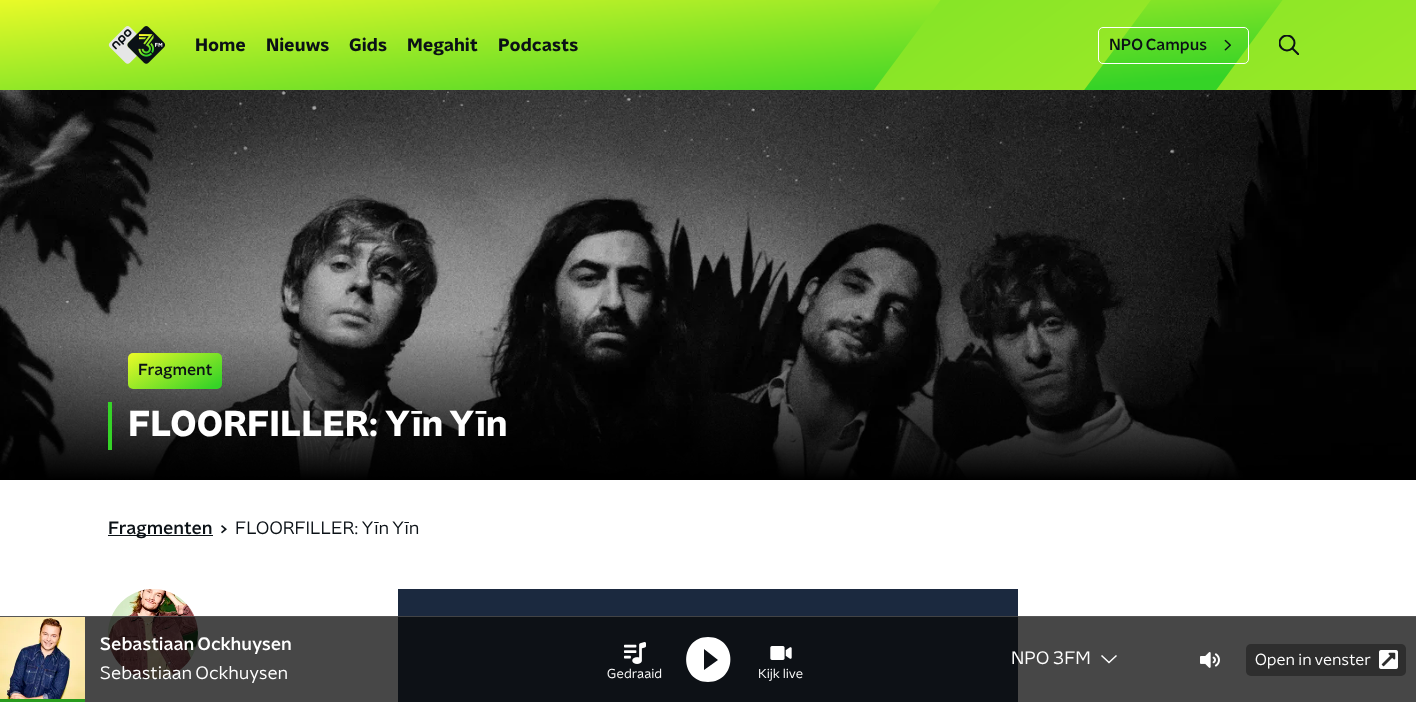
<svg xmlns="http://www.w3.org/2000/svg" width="1416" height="702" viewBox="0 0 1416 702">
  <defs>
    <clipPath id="clip1"><rect x="1279" y="35" width="20" height="20"/></clipPath>
    <linearGradient id="g1" gradientUnits="userSpaceOnUse" x1="153" y1="331" x2="194" y2="405"><stop offset="0" stop-color="#ffff28"/><stop offset="0.93" stop-color="#35d327"/></linearGradient>
  </defs>
  <rect width="100%" height="100%" fill="#ffffff"/>
  <image x="0" y="0" width="1416" height="90" href="img1.png"/>
  <image x="108" y="26" width="57" height="38" href="img2.png"/>
  <text x="195" y="51" font-family="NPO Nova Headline" font-size="18" font-weight="bold" fill="#0b1116">Home</text>
  <text x="266" y="51" font-family="NPO Nova Headline" font-size="18" font-weight="bold" fill="#0b1116">Nieuws</text>
  <text x="349" y="51" font-family="NPO Nova Headline" font-size="18" font-weight="bold" fill="#0b1116">Gids</text>
  <text x="407" y="51" font-family="NPO Nova Headline" font-size="18" font-weight="bold" fill="#0b1116">Megahit</text>
  <text x="498" y="51" font-family="NPO Nova Headline" font-size="18" font-weight="bold" fill="#0b1116">Podcasts</text>
  <rect x="1098.5" y="27.5" width="150" height="36" rx="4.5" fill="none" stroke="#ffffff"/>
  <text x="1109" y="50" font-family="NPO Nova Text" font-size="16" font-weight="500" fill="#0b1116">NPO Campus</text>
  <image x="1224" y="39" width="7" height="12" href="img3.png"/>
  <g clip-path="url(#clip1)">
    <circle cx="1287" cy="43" r="7.5" fill="none" stroke="#0b1116" stroke-width="2"/>
    <path d="M1292.5 48.5L1298.5 54.5" fill="none" stroke="#0b1116" stroke-width="2" stroke-linecap="square"/>
  </g>
  <image x="0" y="90" width="1416" height="390" href="img4.png"/>
  <rect x="128" y="353" width="94" height="36" rx="5" fill="url(#g1)"/>
  <text x="138" y="375" font-family="NPO Nova Text" font-size="16" font-weight="500" fill="#0b1116">Fragment</text>
  <rect x="108" y="402" width="4" height="48" fill="#35d327"/>
  <text x="128" y="436" font-family="NPO Nova Headline" font-size="36" font-weight="bold" fill="#ffffff">FLOORFILLER: Yīn Yīn</text>
  <rect x="108" y="535" width="105" height="1" fill="#0b1116"/>
  <text x="108" y="534" font-family="NPO Nova Text" font-size="18" font-weight="500" fill="#0b1116">Fragmenten</text>
  <image x="221" y="525" width="6" height="9" href="img5.png"/>
  <text x="235" y="534" font-family="NPO Nova Text" font-size="18" fill="#0b1116">FLOORFILLER: Yīn Yīn</text>
  <image x="108" y="589" width="90" height="90" href="img6.png"/>
  <rect x="398" y="589" width="620" height="113" fill="#1b293f"/>
  <rect x="0" y="616" width="1416" height="86" fill="#090909" fill-opacity="0.75"/>
  <rect x="0" y="616" width="1416" height="1" fill="#5f5f5f" fill-opacity="0.65"/>
  <image x="0" y="617" width="85" height="82" href="img7.png"/>
  <rect x="0" y="699" width="85" height="3" fill="#279b1c"/>
  <text x="100" y="650" font-family="NPO Nova Text" font-size="18" font-weight="500" fill="#ffffff">Sebastiaan Ockhuysen</text>
  <text x="100" y="679" font-family="NPO Nova Text" font-size="18" fill="#ffffff">Sebastiaan Ockhuysen</text>
  <text x="1011" y="664" font-family="NPO Nova Text" font-size="18" fill="#ffffff">NPO 3FM</text>
  <path d="M1101.5 655.5L1109 662.5L1116.5 655.5" fill="none" stroke="#ffffff" stroke-width="1.5"/>
  <image x="1200" y="652" width="20" height="16" href="img8.png"/>
  <rect x="1246" y="644" width="160" height="32" rx="5" fill="#2e2e2e"/>
  <text x="1255" y="665" font-family="NPO Nova Text" font-size="16" fill="#ffffff">Open in venster</text>
  <image x="1379" y="650" width="19" height="19" href="img9.png"/>
  <image x="624" y="642" width="22" height="22" href="img10.png"/>
  <text x="607" y="678" font-family="NPO Nova Text" font-size="13" fill="#ffffff">Gedraaid</text>
  <path d="M708 637C679 637 679 682 708 682C738 682 738 637 708 637ZM704 670V649L718 660Z" fill="#ffffff"/>
  <image x="770" y="646" width="22" height="14" href="img11.png"/>
  <text x="758" y="678" font-family="NPO Nova Text" font-size="13" fill="#ffffff">Kijk live</text>
</svg>
